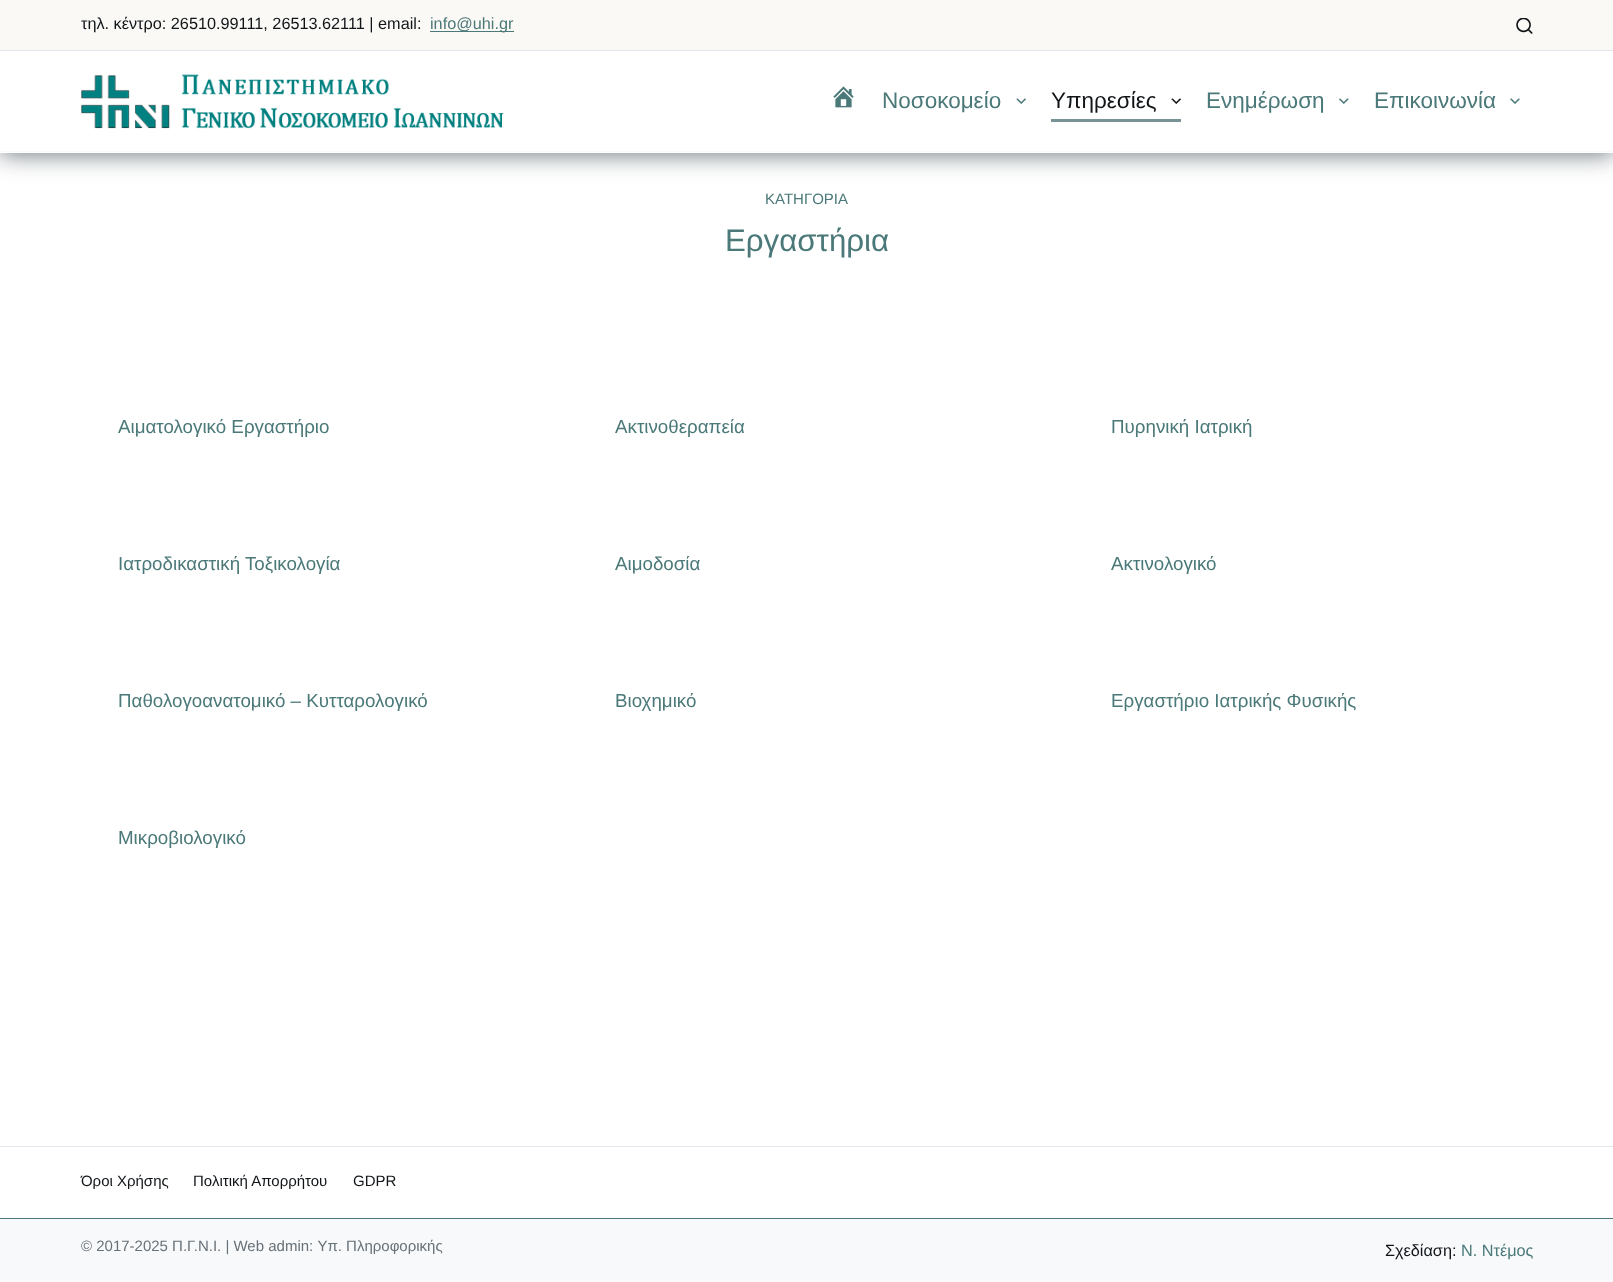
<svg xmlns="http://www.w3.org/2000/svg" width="1613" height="1282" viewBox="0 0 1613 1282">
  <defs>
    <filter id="blur1" x="-50%" y="-200%" width="200%" height="500%"><feGaussianBlur stdDeviation="12.5"/></filter>
  </defs>
  <rect width="100%" height="100%" fill="#ffffff"/>
  <rect x="0" y="51" width="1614" height="103" fill="#677178" filter="url(#blur1)"/>
  <rect x="0" y="0" width="1613" height="50" fill="#faf9f5"/>
  <text x="81" y="29" font-family="Liberation Sans" font-size="16.25" fill="#111518">τηλ. κέντρο: 26510.99111, 26513.62111 | email:</text>
  <rect x="430" y="31" width="84" height="1" fill="#4b7878"/>
  <text x="430" y="29" font-family="Liberation Sans" font-size="16.25" fill="#4b7878">info@uhi.gr</text>
  <image x="1516" y="18" width="17" height="16" href="img1.png"/>
  <rect x="0" y="51" width="1613" height="102" fill="#ffffff"/>
  <rect x="0" y="50" width="1613" height="1" fill="#e2e7ed"/>
  <rect x="0" y="151" width="1613" height="1" fill="#f8f9fb"/>
  <image x="81" y="74" width="423" height="55" href="img2.png"/>
  <image x="833" y="86" width="21" height="22" href="img3.png"/>
  <text x="882" y="108" font-family="Liberation Sans" font-size="22.5" fill="#4b7878">Νοσοκομείο</text>
  <image x="1016" y="98" width="10" height="6" href="img4.png"/>
  <text x="1051" y="108" font-family="Liberation Sans" font-size="22.5" fill="#111518">Υπηρεσίες</text>
  <image x="1171" y="98" width="10" height="6" href="img5.png"/>
  <rect x="1051" y="119" width="130" height="3" fill="#779393"/>
  <text x="1206" y="108" font-family="Liberation Sans" font-size="22.5" fill="#4b7878">Ενημέρωση</text>
  <image x="1339" y="98" width="10" height="6" href="img6.png"/>
  <text x="1374" y="108" font-family="Liberation Sans" font-size="22.5" fill="#4b7878">Επικοινωνία</text>
  <image x="1510" y="98" width="10" height="6" href="img7.png"/>
  <text x="765" y="204" font-family="Liberation Sans" font-size="15" fill="#4b7878">ΚΑΤΗΓΟΡΙΑ</text>
  <text x="725" y="251" font-family="Liberation Sans" font-size="31.25" fill="#4b7878">Εργαστήρια</text>
  <text x="118" y="433" font-family="Liberation Sans" font-size="18.75" fill="#4b7878">Αιματολογικό Εργαστήριο</text>
  <text x="615" y="433" font-family="Liberation Sans" font-size="18.75" fill="#4b7878">Ακτινοθεραπεία</text>
  <text x="1111" y="433" font-family="Liberation Sans" font-size="18.75" fill="#4b7878">Πυρηνική Ιατρική</text>
  <text x="118" y="570" font-family="Liberation Sans" font-size="18.75" fill="#4b7878">Ιατροδικαστική Τοξικολογία</text>
  <text x="615" y="570" font-family="Liberation Sans" font-size="18.75" fill="#4b7878">Αιμοδοσία</text>
  <text x="1111" y="570" font-family="Liberation Sans" font-size="18.75" fill="#4b7878">Ακτινολογικό</text>
  <text x="118" y="707" font-family="Liberation Sans" font-size="18.75" fill="#4b7878">Παθολογοανατομικό – Κυτταρολογικό</text>
  <text x="615" y="707" font-family="Liberation Sans" font-size="18.75" fill="#4b7878">Βιοχημικό</text>
  <text x="1111" y="707" font-family="Liberation Sans" font-size="18.75" fill="#4b7878">Εργαστήριο Ιατρικής Φυσικής</text>
  <text x="118" y="844" font-family="Liberation Sans" font-size="18.75" fill="#4b7878">Μικροβιολογικό</text>
  <rect x="0" y="1146" width="1613" height="1" fill="#e2e7ed"/>
  <text x="81" y="1186" font-family="Liberation Sans" font-size="15" fill="#111518">Όροι Χρήσης</text>
  <text x="193" y="1186" font-family="Liberation Sans" font-size="15" fill="#111518">Πολιτική Απορρήτου</text>
  <text x="353" y="1186" font-family="Liberation Sans" font-size="15" fill="#111518">GDPR</text>
  <rect x="0" y="1219" width="1613" height="63" fill="#f8f9fb"/>
  <rect x="0" y="1218" width="1613" height="1" fill="#4b7878"/>
  <text x="81" y="1251" font-family="Liberation Sans" font-size="15" fill="#677178">© 2017-2025 Π.Γ.Ν.Ι. | Web admin: Υπ. Πληροφορικής</text>
  <text x="1385" y="1256" font-family="Liberation Sans" font-size="16.25" fill="#111518">Σχεδίαση:</text>
  <text x="1461" y="1256" font-family="Liberation Sans" font-size="16.25" fill="#4b7878">Ν. Ντέμος</text>
</svg>
